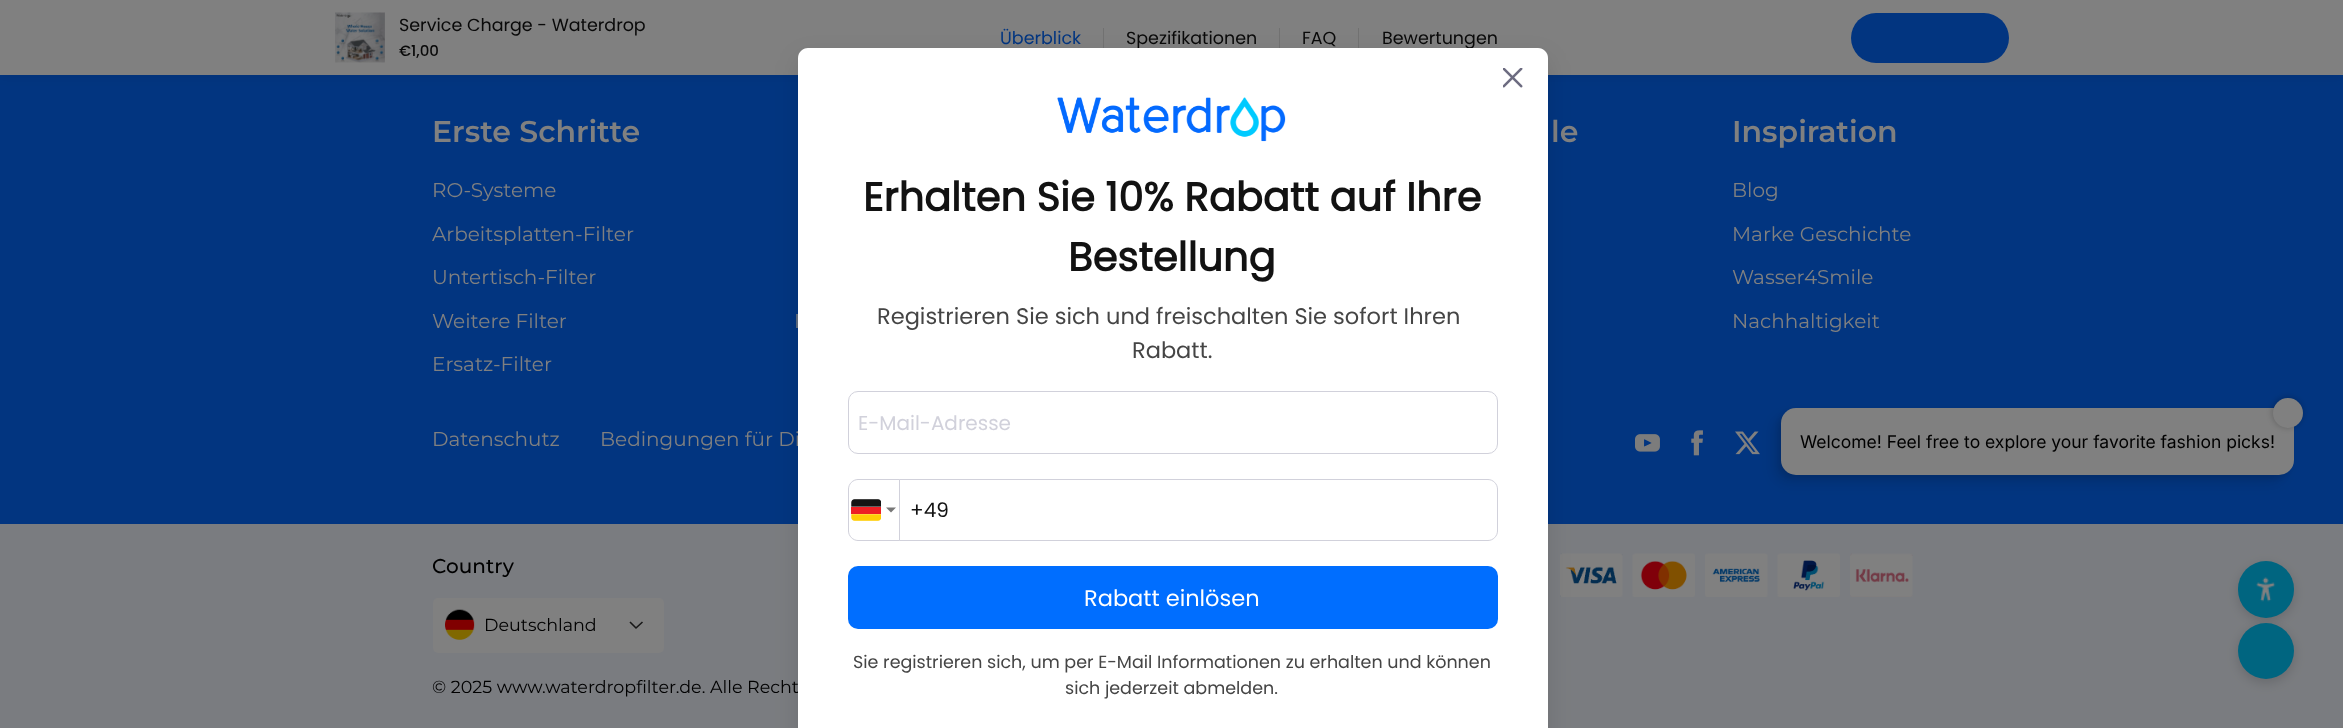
<svg xmlns="http://www.w3.org/2000/svg" width="2343" height="728" viewBox="0 0 2343 728">
  <defs>
    <filter id="blur1" x="-50%" y="-200%" width="200%" height="500%"><feGaussianBlur stdDeviation="6"/></filter>
    <filter id="blur2" x="-50%" y="-200%" width="200%" height="500%"><feGaussianBlur stdDeviation="12.5"/></filter>
    <filter id="blur3" x="-50%" y="-200%" width="200%" height="500%"><feGaussianBlur stdDeviation="3"/></filter>
    <filter id="blur4" x="-50%" y="-200%" width="200%" height="500%"><feGaussianBlur stdDeviation="2.5"/></filter>
  </defs>
  <rect width="100%" height="100%" fill="#7a7c80"/>
  <rect x="0" y="75" width="2343" height="449" fill="#023580"/>
  <rect x="0" y="0" width="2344" height="75" fill="#000000" fill-opacity="0.09" filter="url(#blur1)"/>
  <rect x="0" y="0" width="2343" height="75" fill="#808080"/>
  <image x="335" y="12" width="50" height="51" href="img1.png"/>
  <text x="399" y="31" font-family="Poppins" font-size="17.5" fill="#090909">Service Charge - Waterdrop</text>
  <text x="399" y="56" font-family="Poppins" font-size="15" font-weight="500" fill="#090909">€1,00</text>
  <text x="1000" y="44" font-family="Poppins" font-size="17.5" fill="#023580">Überblick</text>
  <rect x="1103" y="28" width="1" height="20" fill="#717171"/>
  <text x="1126" y="44" font-family="Poppins" font-size="17.5" fill="#090909">Spezifikationen</text>
  <rect x="1279" y="28" width="1" height="20" fill="#717171"/>
  <text x="1302" y="44" font-family="Poppins" font-size="17.5" fill="#090909">FAQ</text>
  <rect x="1358" y="28" width="1" height="20" fill="#717171"/>
  <text x="1382" y="44" font-family="Poppins" font-size="17.5" fill="#090909">Bewertungen</text>
  <rect x="1851" y="13" width="158" height="50" rx="25" fill="#023580"/>
  <text x="432" y="142" font-family="Montserrat" font-size="30" font-weight="600" fill="#808080">Erste Schritte</text>
  <text x="432" y="197" font-family="Montserrat" font-size="20" fill="#808080">RO-Systeme</text>
  <text x="432" y="241" font-family="Montserrat" font-size="20" fill="#808080">Arbeitsplatten-Filter</text>
  <text x="432" y="284" font-family="Montserrat" font-size="20" fill="#808080">Untertisch-Filter</text>
  <text x="432" y="328" font-family="Montserrat" font-size="20" fill="#808080">Weitere Filter</text>
  <text x="432" y="371" font-family="Montserrat" font-size="20" fill="#808080">Ersatz-Filter</text>
  <text x="1551" y="142" font-family="Montserrat" font-size="30" font-weight="600" fill="#808080">le</text>
  <text x="1732" y="142" font-family="Montserrat" font-size="30" font-weight="600" fill="#808080">Inspiration</text>
  <text x="1732" y="197" font-family="Montserrat" font-size="20" fill="#808080">Blog</text>
  <text x="1732" y="241" font-family="Montserrat" font-size="20" fill="#808080">Marke Geschichte</text>
  <text x="1732" y="284" font-family="Montserrat" font-size="20" fill="#808080">Wasser4Smile</text>
  <text x="1732" y="328" font-family="Montserrat" font-size="20" fill="#808080">Nachhaltigkeit</text>
  <text x="794" y="328" font-family="Montserrat" font-size="20" fill="#808080">I</text>
  <text x="432" y="446" font-family="Montserrat" font-size="20" fill="#808080">Datenschutz</text>
  <text x="600" y="446" font-family="Montserrat" font-size="20" fill="#808080">Bedingungen für Di</text>
  <image x="1635" y="434" width="25" height="18" href="img2.png"/>
  <image x="1691" y="430" width="12" height="26" href="img3.png"/>
  <image x="1735" y="431" width="25" height="24" href="img4.png"/>
  <text x="432" y="573" font-family="Montserrat" font-size="20" font-weight="500" fill="#000000">Country</text>
  <rect x="433" y="598" width="231" height="55" rx="5" fill="#808080"/>
  <image x="445" y="609" width="30" height="31" href="img5.png"/>
  <text x="484" y="631" font-family="Montserrat" font-size="17.5" fill="#000000">Deutschland</text>
  <path d="M630 622L636 628L642.5 622" fill="none" stroke="#181818" stroke-width="1.6" stroke-linejoin="round"/>
  <image x="1560" y="553" width="63" height="44" href="img6.png"/>
  <image x="1632" y="553" width="63" height="44" href="img7.png"/>
  <image x="1705" y="553" width="63" height="44" href="img8.png"/>
  <image x="1777" y="553" width="63" height="44" href="img9.png"/>
  <image x="1850" y="553" width="63" height="44" href="img10.png"/>
  <text x="432" y="693" font-family="Montserrat" font-size="17.5" fill="#000000">© 2025 www.waterdropfilter.de. Alle Recht</text>
  <rect x="798" y="58" width="750" height="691" rx="10" fill="#121127" fill-opacity="0.1" filter="url(#blur2)"/>
  <path d="M808 48H1538C1543.5 48 1548 52.5 1548 58V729H798V58C798 52.5 802.5 48 808 48Z" fill="#ffffff"/>
  <image x="1503" y="68" width="20" height="20" href="img11.png"/>
  <image x="1057" y="97" width="229" height="45" href="img12.png"/>
  <text x="863" y="211" font-family="Poppins" font-size="40" font-weight="bold" fill="#121212">Erhalten Sie 10% Rabatt auf Ihre</text>
  <text x="1068" y="271" font-family="Poppins" font-size="40" font-weight="bold" fill="#121212">Bestellung</text>
  <text x="877" y="324" font-family="Poppins" font-size="22.5" fill="#454545">Registrieren Sie sich und freischalten Sie sofort Ihren</text>
  <text x="1132" y="358" font-family="Poppins" font-size="22.5" fill="#454545">Rabatt.</text>
  <rect x="848.5" y="391.5" width="649" height="62" rx="9.5" fill="none" stroke="#d1d1db"/>
  <text x="858" y="430" font-family="Poppins" font-size="20" fill="#d1d1db">E-Mail-Adresse</text>
  <path d="M899.5 479.5H1488C1493 479.5 1497.5 484 1497.5 489V531C1497.5 536 1493 540.5 1488 540.5H899.5Z" fill="none" stroke="#d1d1db"/>
  <path d="M858 479.5H899.5V540.5H858C853 540.5 848.5 536 848.5 531V489C848.5 484 853 479.5 858 479.5Z" fill="#ffffff" stroke="#d1d1db"/>
  <image x="851" y="499" width="30" height="22" href="img13.png"/>
  <path d="M886 507.5H896L891 512.5Z" fill="#777777"/>
  <text x="910" y="517" font-family="Poppins" font-size="20" fill="#121212">+49</text>
  <rect x="848" y="566" width="650" height="63" rx="10" fill="#006eff"/>
  <text x="1084" y="606" font-family="Poppins" font-size="22.5" fill="#ffffff">Rabatt einlösen</text>
  <text x="853" y="668" font-family="Poppins" font-size="17.5" fill="#454545">Sie registrieren sich, um per E-Mail Informationen zu erhalten und können</text>
  <text x="1065" y="694" font-family="Poppins" font-size="17.5" fill="#454545">sich jederzeit abmelden.</text>
  <rect x="1779" y="410" width="512" height="68" rx="15" fill="#000000" fill-opacity="0.1" filter="url(#blur3)"/>
  <rect x="1773" y="416" width="512" height="68" rx="15" fill="#000000" fill-opacity="0.09" filter="url(#blur1)"/>
  <rect x="1781" y="408" width="513" height="67" rx="15" fill="#808080"/>
  <rect x="2271" y="396" width="33" height="33" rx="16.5" fill="#000000" fill-opacity="0.15" filter="url(#blur4)"/>
  <circle cx="2288" cy="413" r="15" fill="#808080"/>
  <text x="1800" y="448" font-family="Inter" font-size="17.5" fill="#000000">Welcome! Feel free to explore your favorite fashion picks!</text>
  <rect x="2238" y="565" width="56" height="56" rx="28" fill="#000000" fill-opacity="0.15" filter="url(#blur1)"/>
  <rect x="2238" y="561" width="56" height="57" rx="28" fill="#006580"/>
  <image x="2256" y="577" width="20" height="25" href="img14.png"/>
  <rect x="2238" y="626" width="56" height="57" rx="28" fill="#000000" fill-opacity="0.15" filter="url(#blur1)"/>
  <circle cx="2266" cy="651" r="28" fill="#006580"/>
  <rect x="2341" y="726" width="2" height="2" fill="#7b7b7b"/>
</svg>
